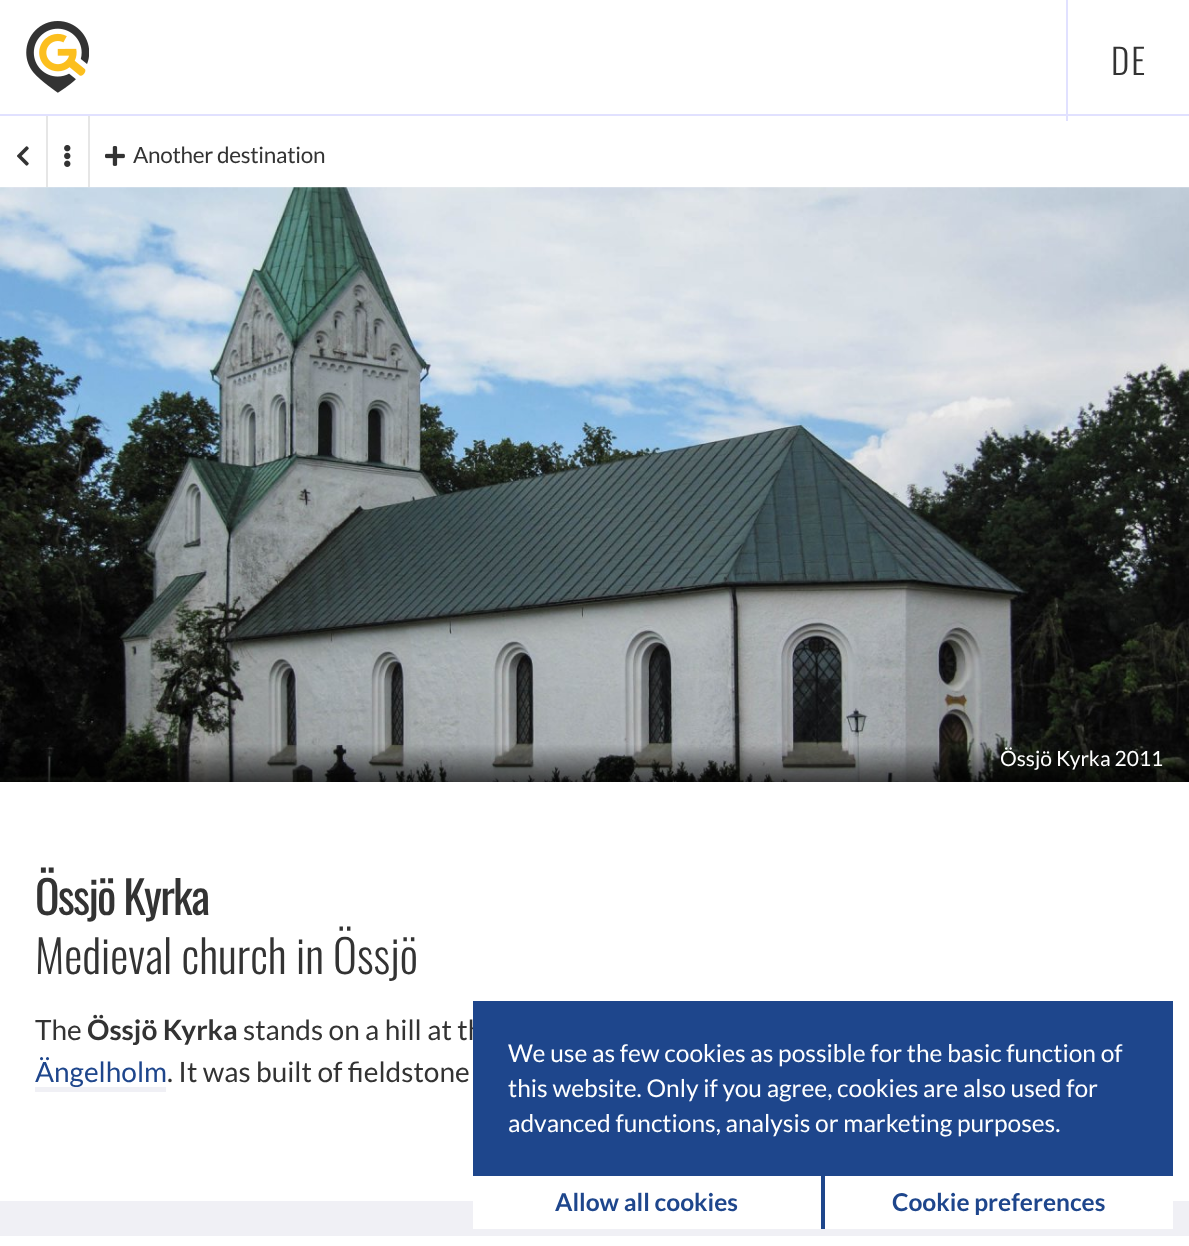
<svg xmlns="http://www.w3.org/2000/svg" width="1189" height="1246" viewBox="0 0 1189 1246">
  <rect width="100%" height="100%" fill="#ffffff"/>
  <rect x="0" y="114" width="1189" height="2" fill="#e1e1ff"/>
  <image x="26" y="21" width="63" height="72" href="img1.png"/>
  <rect x="1066" y="0" width="2" height="121" fill="#e1e1ff"/>
  <text x="1111" y="75" font-family="Oswald" font-size="35" font-weight="300" letter-spacing="2" fill="#333333">DE</text>
  <image x="17" y="146" width="12" height="20" href="img2.png"/>
  <rect x="46" y="116" width="2" height="71" fill="#e6e6e6"/>
  <image x="64" y="145" width="7" height="22" href="img3.png"/>
  <rect x="88" y="116" width="2" height="71" fill="#e6e6e6"/>
  <image x="105" y="146" width="20" height="20" href="img4.png"/>
  <text x="133" y="163" font-family="Lato" font-size="22.5" letter-spacing="-0.3" fill="#333333">Another destination</text>
  <rect x="0" y="187" width="1189" height="1049" fill="#f0f0f5"/>
  <image x="0" y="187" width="1189" height="595" href="img5.png"/>
  <text x="1000" y="766" font-family="Lato" font-size="21" fill="#ffffff">Össjö Kyrka 2011</text>
  <rect x="0" y="782" width="1189" height="419" fill="#ffffff"/>
  <text x="35" y="915" font-family="Oswald" font-size="45.5" letter-spacing="-1.75" fill="#333333">Össjö Kyrka</text>
  <text x="35" y="974" font-family="Oswald" font-size="45.5" font-weight="300" fill="#333333">Medieval church in Össjö</text>
  <text x="35" y="1040" font-family="Lato" font-size="28" fill="#333333">The</text>
  <text x="87" y="1040" font-family="Lato" font-size="28" font-weight="bold" fill="#333333">Össjö Kyrka</text>
  <text x="243" y="1040" font-family="Lato" font-size="28" fill="#333333">stands on a hill at th</text>
  <rect x="35" y="1087" width="131" height="5" fill="#f0f0f5"/>
  <text x="35" y="1082" font-family="Lato" font-size="28" fill="#1e468c">Ängelholm</text>
  <text x="167" y="1082" font-family="Lato" font-size="28" fill="#333333">. It was built of fieldstone</text>
  <rect x="473" y="1001" width="700" height="175" fill="#1e468c"/>
  <text x="508" y="1062" font-family="Lato" font-size="24.5" fill="#ffffff">We use as few cookies as possible for the basic function of</text>
  <text x="508" y="1097" font-family="Lato" font-size="24.5" fill="#ffffff">this website. Only if you agree, cookies are also used for</text>
  <text x="508" y="1132" font-family="Lato" font-size="24.5" fill="#ffffff">advanced functions, analysis or marketing purposes.</text>
  <rect x="473" y="1201" width="700" height="28" fill="#ffffff"/>
  <rect x="821" y="1176" width="4" height="53" fill="#1e468c"/>
  <text x="555" y="1211" font-family="Lato" font-size="24.5" font-weight="bold" fill="#1e468c">Allow all cookies</text>
  <text x="892" y="1211" font-family="Lato" font-size="24.5" font-weight="bold" fill="#1e468c">Cookie preferences</text>
</svg>
